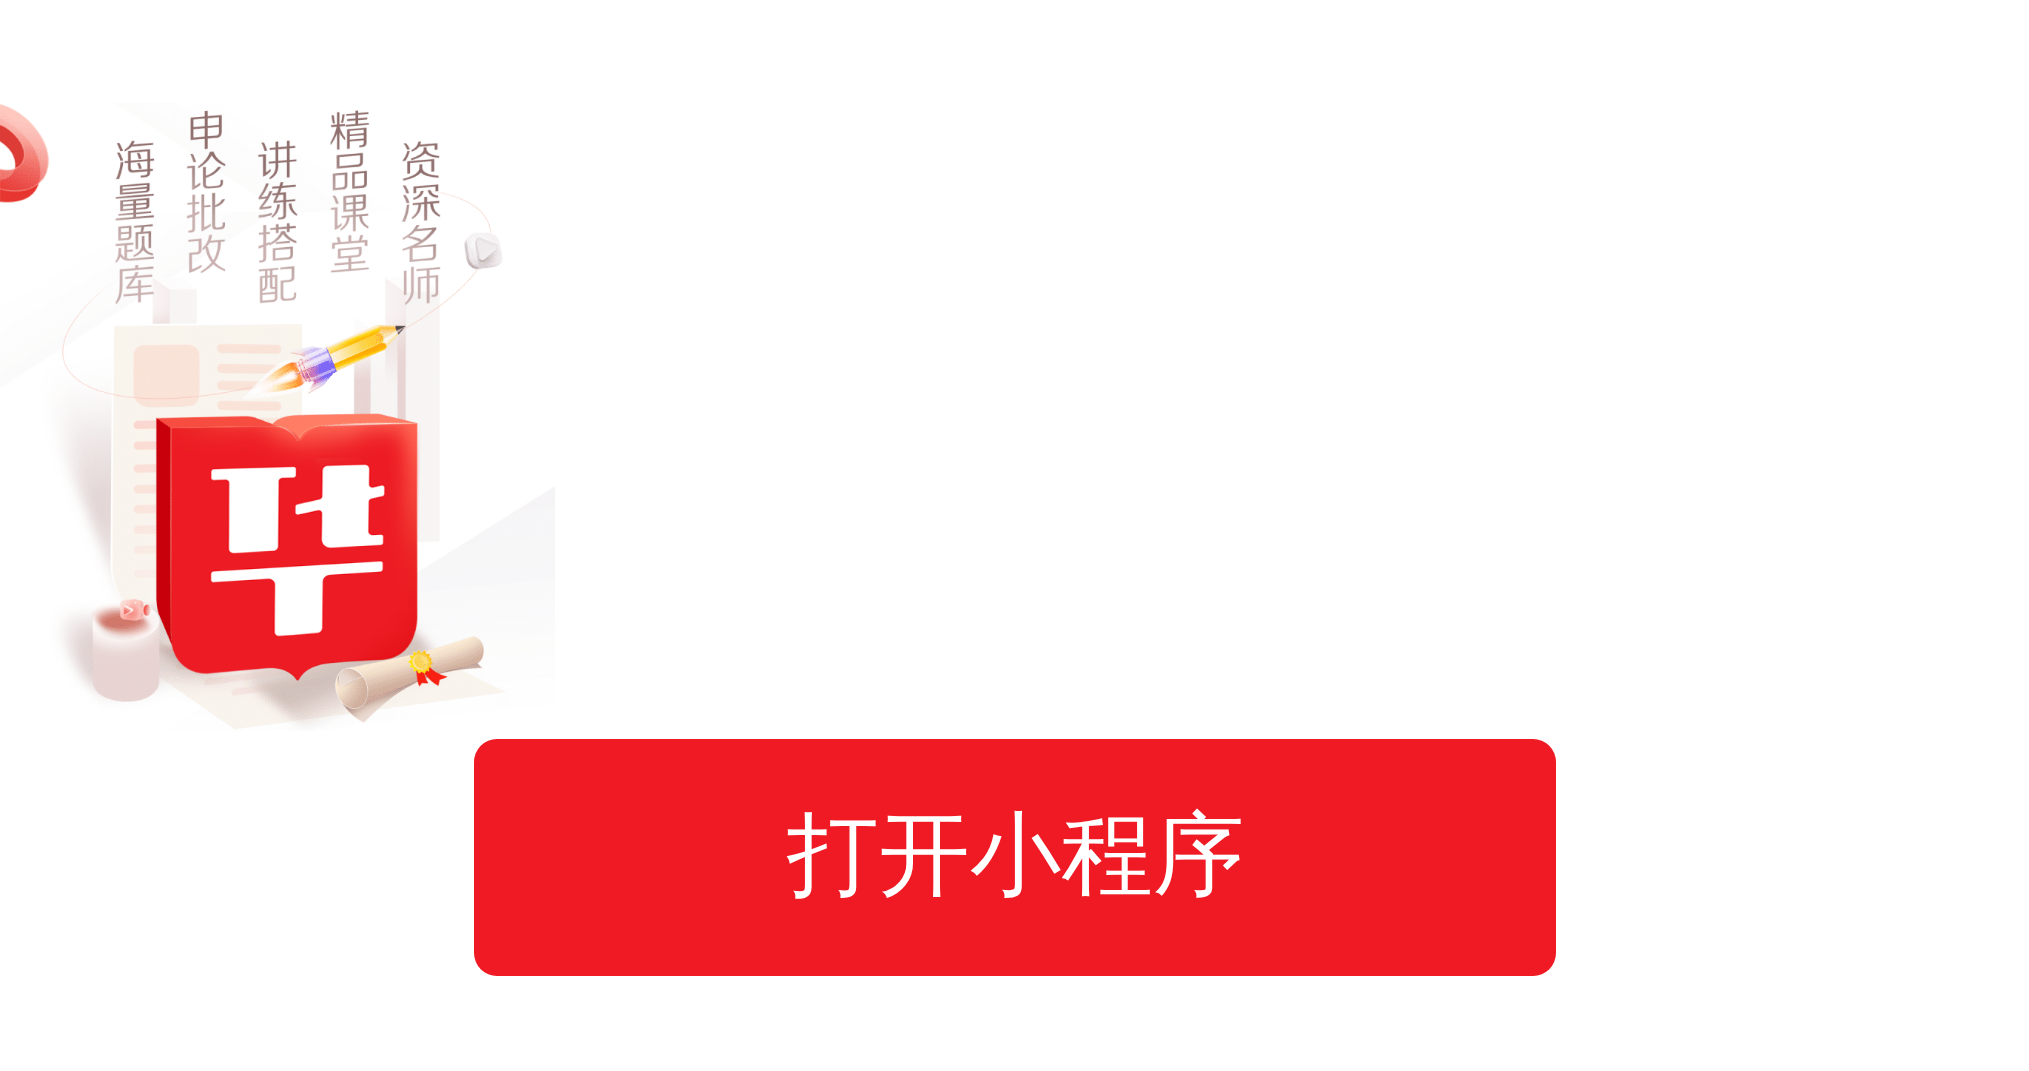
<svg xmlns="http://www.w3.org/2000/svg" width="2029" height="1071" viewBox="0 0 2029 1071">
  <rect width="100%" height="100%" fill="#ffffff"/>
  <image x="0" y="103" width="555" height="628" href="img1.png"/>
  <rect x="474" y="739" width="1082" height="237" rx="23" fill="#ef1a23"/>
  <text x="787" y="886" font-family="WenQuanYi Zen Hei" font-size="91.5" font-weight="500" fill="#ffffff">打开小程序</text>
</svg>
